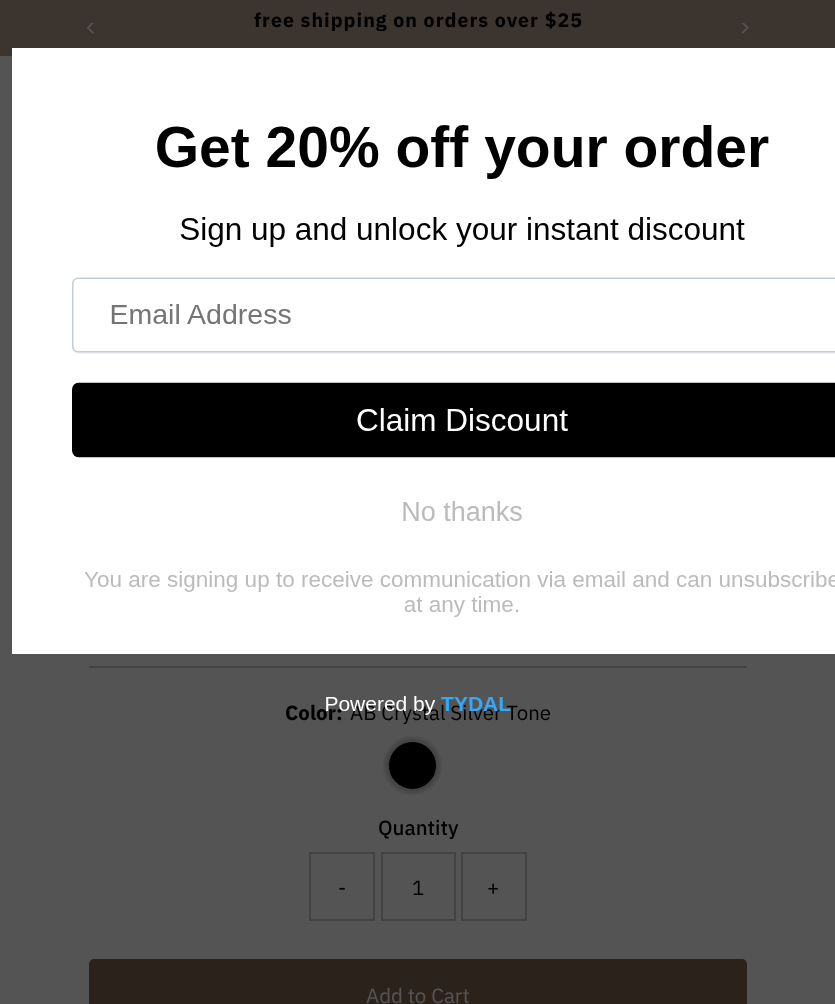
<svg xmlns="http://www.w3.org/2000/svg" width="835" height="1004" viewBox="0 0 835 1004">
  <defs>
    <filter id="blur1" x="-50%" y="-200%" width="200%" height="500%"><feGaussianBlur stdDeviation="1.5"/></filter>
  </defs>
  <rect width="100%" height="100%" fill="#ffffff"/>
  <rect x="0" y="0" width="835" height="56" fill="#b79e8c"/>
  <image x="86" y="23" width="8" height="11" href="img2.png"/>
  <text x="254" y="27" font-family="IBM Plex Sans" font-size="19.6" font-weight="bold" letter-spacing="1" fill="#000000">free shipping on orders over $25</text>
  <image x="741" y="23" width="8" height="11" href="img3.png"/>
  <rect x="89" y="666" width="658" height="2" fill="#cccccc"/>
  <text x="285" y="720" font-family="IBM Plex Sans" font-size="20.5" font-weight="bold" fill="#000000">Color:</text>
  <text x="350" y="720" font-family="IBM Plex Sans" font-size="20.5" fill="#000000">AB Crystal Silver Tone</text>
  <rect x="384" y="737" width="57" height="57" rx="28.5" fill="#d6d6d6" filter="url(#blur1)"/>
  <circle cx="412.5" cy="765.5" r="24.5" fill="#000000" stroke="#cccccc" stroke-width="2"/>
  <text x="378" y="835" font-family="IBM Plex Sans" font-size="20.5" font-weight="500" fill="#000000">Quantity</text>
  <rect x="310" y="853" width="64" height="67" fill="none" stroke="#cccccc" stroke-width="2"/>
  <text x="338" y="895" font-family="IBM Plex Sans" font-size="20.5" fill="#000000">-</text>
  <rect x="382" y="853" width="73" height="67" fill="none" stroke="#cccccc" stroke-width="2"/>
  <text x="412" y="895" font-family="IBM Plex Sans" font-size="20.5" fill="#000000">1</text>
  <rect x="462" y="853" width="64" height="67" fill="none" stroke="#cccccc" stroke-width="2"/>
  <text x="487" y="895" font-family="IBM Plex Sans" font-size="20.5" fill="#000000">+</text>
  <rect x="89" y="959" width="658" height="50" rx="5" fill="#836957"/>
  <text x="366" y="1003" font-family="IBM Plex Sans" font-size="20.5" fill="#ffffff">Add to Cart</text>
  <image x="0" y="0" width="835" height="1004" href="img1.png"/>
</svg>
